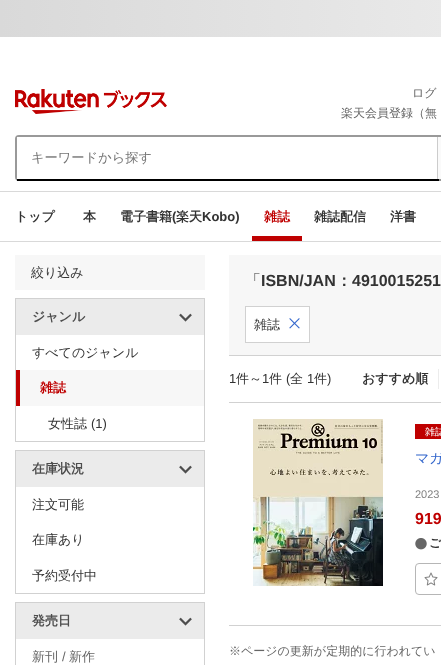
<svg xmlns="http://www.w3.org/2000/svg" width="441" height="665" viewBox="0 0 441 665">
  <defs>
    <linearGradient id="g1" gradientUnits="userSpaceOnUse" x1="0" y1="19" x2="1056" y2="18"><stop offset="0" stop-color="#d9d9d9"/><stop offset="0.5" stop-color="#ececec"/><stop offset="1" stop-color="#d9d9d9"/></linearGradient>
  </defs>
  <rect width="100%" height="100%" fill="#ffffff"/>
  <rect x="0" y="0" width="441" height="37" fill="url(#g1)"/>
  <rect x="0" y="241" width="441" height="1" fill="#d9d9d9"/>
  <image x="15" y="89" width="152" height="25" href="img1.png"/>
  <text x="412" y="97" font-family="WenQuanYi Zen Hei" font-size="12" font-weight="500" fill="#666666">ログ</text>
  <text x="341" y="117" font-family="WenQuanYi Zen Hei" font-size="12" font-weight="500" fill="#666666">楽天会員登録（無</text>
  <rect x="16" y="136" width="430" height="44" rx="3" fill="none" stroke="#999999" stroke-width="2"/>
  <rect x="17" y="137" width="2" height="42" fill="#ffffff"/>
  <text x="31" y="162" font-family="WenQuanYi Zen Hei" font-size="13.25" font-weight="500" fill="#757575">キーワードから探す</text>
  <rect x="17" y="179" width="422" height="2" fill="#000000"/>
  <rect x="438" y="137" width="3" height="42" fill="#fafafa"/>
  <rect x="437" y="137" width="1" height="42" fill="#cccccc"/>
  <rect x="0" y="191" width="441" height="1" fill="#d9d9d9"/>
  <text x="15" y="221" font-family="WenQuanYi Zen Hei" font-size="13" font-weight="bold" fill="#333333">トップ</text>
  <text x="83" y="221" font-family="WenQuanYi Zen Hei" font-size="13" font-weight="bold" fill="#333333">本</text>
  <text x="120" y="221" font-family="WenQuanYi Zen Hei" font-size="13" font-weight="bold" fill="#333333">電子書籍</text>
  <text x="172" y="221" font-family="Liberation Sans" font-size="13" font-weight="bold" fill="#333333">(</text>
  <text x="176" y="221" font-family="WenQuanYi Zen Hei" font-size="13" font-weight="bold" fill="#333333">楽天</text>
  <text x="202" y="221" font-family="Liberation Sans" font-size="13" font-weight="bold" fill="#333333">Kobo)</text>
  <text x="264" y="221" font-family="WenQuanYi Zen Hei" font-size="13" font-weight="bold" fill="#bf0000">雑誌</text>
  <rect x="252" y="236" width="50" height="5" fill="#bf0000"/>
  <text x="314" y="221" font-family="WenQuanYi Zen Hei" font-size="13" font-weight="bold" fill="#333333">雑誌配信</text>
  <text x="390" y="221" font-family="WenQuanYi Zen Hei" font-size="13" font-weight="bold" fill="#333333">洋書</text>
  <rect x="15" y="255" width="190" height="35" fill="#f7f7f7"/>
  <text x="31" y="277" font-family="WenQuanYi Zen Hei" font-size="13" font-weight="500" fill="#333333">絞り込み</text>
  <rect x="15.5" y="298.5" width="189" height="143" fill="none" stroke="#d1d1d1"/>
  <rect x="16" y="299" width="188" height="36" fill="#ebebeb"/>
  <text x="32" y="321" font-family="WenQuanYi Zen Hei" font-size="13" font-weight="bold" fill="#4d4d4d">ジャンル</text>
  <image x="179" y="313" width="13" height="9" href="img2.png"/>
  <text x="32" y="357" font-family="WenQuanYi Zen Hei" font-size="13" font-weight="500" fill="#333333">すべてのジャンル</text>
  <rect x="20" y="370" width="184" height="36" fill="#f7f7f7"/>
  <rect x="16" y="370" width="4" height="36" fill="#bf0000"/>
  <text x="40" y="392" font-family="WenQuanYi Zen Hei" font-size="13" font-weight="bold" fill="#bf0000">雑誌</text>
  <text x="48" y="428" font-family="WenQuanYi Zen Hei" font-size="13" font-weight="500" fill="#333333">女性誌</text>
  <text x="91" y="428" font-family="Liberation Sans" font-size="13" fill="#333333">(1)</text>
  <rect x="15.5" y="450.5" width="189" height="143" fill="none" stroke="#d1d1d1"/>
  <rect x="16" y="451" width="188" height="36" fill="#ebebeb"/>
  <text x="32" y="473" font-family="WenQuanYi Zen Hei" font-size="13" font-weight="bold" fill="#4d4d4d">在庫状況</text>
  <image x="179" y="465" width="13" height="9" href="img2.png"/>
  <text x="32" y="509" font-family="WenQuanYi Zen Hei" font-size="13" font-weight="500" fill="#333333">注文可能</text>
  <text x="32" y="544" font-family="WenQuanYi Zen Hei" font-size="13" font-weight="500" fill="#333333">在庫あり</text>
  <text x="32" y="580" font-family="WenQuanYi Zen Hei" font-size="13" font-weight="500" fill="#333333">予約受付中</text>
  <rect x="15.5" y="602.5" width="189" height="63" fill="none" stroke="#d1d1d1"/>
  <rect x="16" y="603" width="188" height="36" fill="#ebebeb"/>
  <text x="32" y="625" font-family="WenQuanYi Zen Hei" font-size="13" font-weight="bold" fill="#4d4d4d">発売日</text>
  <image x="179" y="617" width="13" height="9" href="img2.png"/>
  <text x="32" y="661" font-family="WenQuanYi Zen Hei" font-size="13" font-weight="500" fill="#666666">新刊</text>
  <text x="62" y="661" font-family="Liberation Sans" font-size="13" fill="#666666">/</text>
  <text x="69" y="661" font-family="WenQuanYi Zen Hei" font-size="13" font-weight="500" fill="#666666">新作</text>
  <rect x="229" y="255" width="212" height="100" fill="#f7f7f7"/>
  <text x="245" y="286" font-family="WenQuanYi Zen Hei" font-size="16" font-weight="500" fill="#333333">「</text>
  <text x="261" y="286" font-family="Liberation Sans" font-size="16" font-weight="bold" fill="#333333">ISBN/JAN</text>
  <text x="336" y="286" font-family="WenQuanYi Zen Hei" font-size="16" font-weight="bold" fill="#333333">：</text>
  <text x="352" y="286" font-family="Liberation Sans" font-size="16" font-weight="bold" fill="#333333">4910015251</text>
  <rect x="245.5" y="306.5" width="64" height="36" fill="#ffffff" stroke="#d1d1d1"/>
  <text x="254" y="329" font-family="WenQuanYi Zen Hei" font-size="13" font-weight="500" fill="#333333">雑誌</text>
  <image x="289" y="318" width="11" height="11" href="img3.png"/>
  <rect x="229" y="355" width="212" height="1" fill="#d1d1d1"/>
  <rect x="229" y="402" width="212" height="1" fill="#d1d1d1"/>
  <text x="229" y="383" font-family="Liberation Sans" font-size="13" fill="#333333">1</text>
  <text x="236" y="383" font-family="WenQuanYi Zen Hei" font-size="13" font-weight="500" fill="#333333">件～</text>
  <text x="262" y="383" font-family="Liberation Sans" font-size="13" fill="#333333">1</text>
  <text x="269" y="383" font-family="WenQuanYi Zen Hei" font-size="13" font-weight="500" fill="#333333">件</text>
  <text x="286" y="383" font-family="Liberation Sans" font-size="13" fill="#333333">(</text>
  <text x="290" y="383" font-family="WenQuanYi Zen Hei" font-size="13" font-weight="500" fill="#333333">全</text>
  <text x="307" y="383" font-family="Liberation Sans" font-size="13" fill="#333333">1</text>
  <text x="314" y="383" font-family="WenQuanYi Zen Hei" font-size="13" font-weight="500" fill="#333333">件</text>
  <text x="327" y="383" font-family="Liberation Sans" font-size="13" fill="#333333">)</text>
  <rect x="438" y="369" width="1" height="20" fill="#ececec"/>
  <text x="362" y="383" font-family="WenQuanYi Zen Hei" font-size="13" font-weight="bold" fill="#333333">おすすめ順</text>
  <rect x="229" y="625" width="212" height="1" fill="#d1d1d1"/>
  <image x="253" y="419" width="130" height="167" href="img4.png"/>
  <rect x="415" y="424" width="26" height="15" fill="#bf0000"/>
  <text x="425" y="435" font-family="WenQuanYi Zen Hei" font-size="10" font-weight="500" fill="#ffffff">雑誌</text>
  <text x="415" y="463" font-family="WenQuanYi Zen Hei" font-size="14" font-weight="500" fill="#3366cc">マガ</text>
  <text x="415" y="498" font-family="Liberation Sans" font-size="11" fill="#828282">2023</text>
  <text x="415" y="524" font-family="Liberation Sans" font-size="16" font-weight="bold" fill="#bf0000">919</text>
  <image x="415" y="538" width="12" height="12" href="img5.png"/>
  <text x="429" y="547" font-family="WenQuanYi Zen Hei" font-size="12" font-weight="bold" fill="#333333">ご</text>
  <rect x="415.5" y="563.5" width="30" height="31" rx="3.5" fill="none" stroke="#b6b6b6"/>
  <image x="424" y="572" width="14" height="14" href="img6.png"/>
  <text x="229" y="655" font-family="WenQuanYi Zen Hei" font-size="12" font-weight="500" fill="#666666">※ページの更新が定期的に行われてい</text>
</svg>
